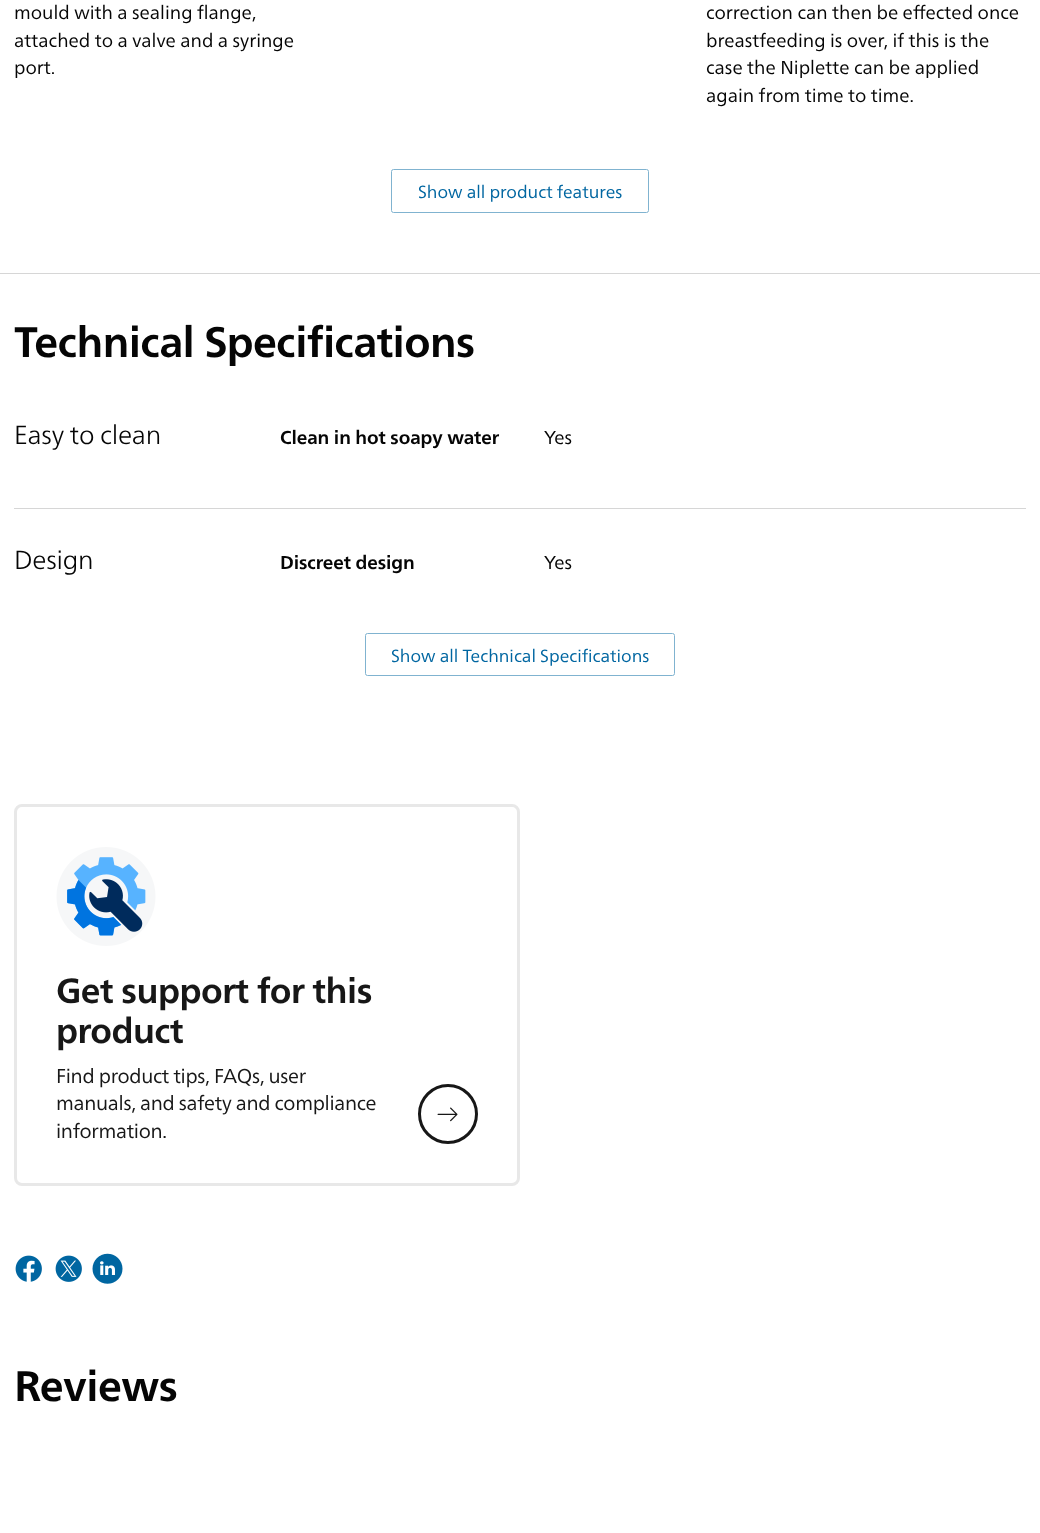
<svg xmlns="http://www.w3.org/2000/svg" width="1040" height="1533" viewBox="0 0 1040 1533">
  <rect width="100%" height="100%" fill="#ffffff"/>
  <text x="14" y="19" font-family="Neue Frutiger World" font-size="18.75" fill="#050505">mould with a sealing flange,</text>
  <text x="14" y="47" font-family="Neue Frutiger World" font-size="18.75" fill="#050505">attached to a valve and a syringe</text>
  <text x="14" y="74" font-family="Neue Frutiger World" font-size="18.75" fill="#050505">port.</text>
  <text x="706" y="19" font-family="Neue Frutiger World" font-size="18.75" fill="#050505">correction can then be effected once</text>
  <text x="706" y="47" font-family="Neue Frutiger World" font-size="18.75" fill="#050505">breastfeeding is over, if this is the</text>
  <text x="706" y="74" font-family="Neue Frutiger World" font-size="18.75" fill="#050505">case the Niplette can be applied</text>
  <text x="706" y="102" font-family="Neue Frutiger World" font-size="18.75" fill="#050505">again from time to time.</text>
  <rect x="391.5" y="169.5" width="257" height="43" rx="2" fill="none" stroke="#80b3d0"/>
  <text x="418" y="198" font-family="Neue Frutiger World" font-size="17.5" fill="#0066a1">Show all product features</text>
  <rect x="0" y="273" width="1040" height="1" fill="#d6d6d6"/>
  <text x="14" y="357" font-family="Neue Frutiger World" font-size="42.5" font-weight="bold" letter-spacing="-0.6" fill="#050505">Technical Specifications</text>
  <text x="14" y="444" font-family="Neue Frutiger World" font-size="26.25" font-weight="300" letter-spacing="-0.25" fill="#050505">Easy to clean</text>
  <text x="280" y="444" font-family="Neue Frutiger World" font-size="18.75" font-weight="bold" letter-spacing="-0.1" fill="#050505">Clean in hot soapy water</text>
  <text x="544" y="444" font-family="Neue Frutiger World" font-size="18.75" fill="#050505">Yes</text>
  <rect x="14" y="508" width="1012" height="1" fill="#d6d6d6"/>
  <text x="14" y="569" font-family="Neue Frutiger World" font-size="26.25" font-weight="300" letter-spacing="-0.25" fill="#050505">Design</text>
  <text x="280" y="569" font-family="Neue Frutiger World" font-size="18.75" font-weight="bold" letter-spacing="-0.1" fill="#050505">Discreet design</text>
  <text x="544" y="569" font-family="Neue Frutiger World" font-size="18.75" fill="#050505">Yes</text>
  <rect x="365.5" y="633.5" width="309" height="42" rx="2" fill="none" stroke="#80b3d0"/>
  <text x="391" y="662" font-family="Neue Frutiger World" font-size="17.5" fill="#0066a1">Show all Technical Specifications</text>
  <rect x="15.5" y="805.5" width="503" height="379" rx="6.5" fill="none" stroke="#e8e8e8" stroke-width="3"/>
  <image x="56" y="847" width="100" height="99" href="img1.png"/>
  <text x="56" y="1003" font-family="Neue Frutiger World" font-size="35" font-weight="bold" letter-spacing="-0.5" fill="#171717">Get support for this</text>
  <text x="56" y="1043" font-family="Neue Frutiger World" font-size="35" font-weight="bold" letter-spacing="-0.5" fill="#171717">product</text>
  <text x="56" y="1083" font-family="Neue Frutiger World" font-size="20" letter-spacing="-0.3" fill="#171717">Find product tips, FAQs, user</text>
  <text x="56" y="1110" font-family="Neue Frutiger World" font-size="20" letter-spacing="-0.3" fill="#171717">manuals, and safety and compliance</text>
  <text x="56" y="1138" font-family="Neue Frutiger World" font-size="20" letter-spacing="-0.3" fill="#171717">information.</text>
  <circle cx="448" cy="1114" r="28.5" fill="none" stroke="#171717" stroke-width="3"/>
  <image x="437" y="1107" width="21" height="15" href="img2.png"/>
  <image x="15" y="1255" width="27" height="27" href="img3.png"/>
  <image x="55" y="1255" width="27" height="27" href="img4.png"/>
  <image x="92" y="1253" width="31" height="31" href="img5.png"/>
  <text x="14" y="1401" font-family="Neue Frutiger World" font-size="42.5" font-weight="bold" letter-spacing="-0.6" fill="#050505">Reviews</text>
</svg>
